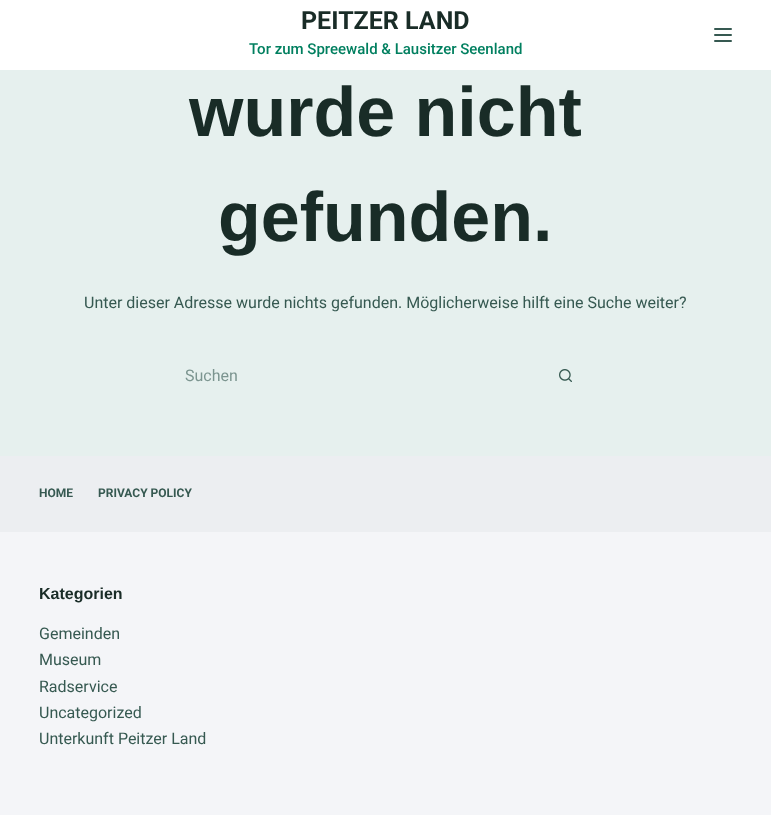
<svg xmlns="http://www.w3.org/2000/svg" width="771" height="815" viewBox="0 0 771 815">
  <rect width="100%" height="100%" fill="#e6f0ee"/>
  <rect x="0" y="0" width="771" height="70" fill="#ffffff"/>
  <text x="301" y="29" font-family="Roboto" font-size="25" font-weight="bold" fill="#192c27">PEITZER LAND</text>
  <text x="249" y="54" font-family="Roboto" font-size="15" font-weight="500" fill="#007f5f">Tor zum Spreewald &amp; Lausitzer Seenland</text>
  <rect x="714" y="28" width="18" height="2" rx="1" fill="#365951"/>
  <rect x="714" y="34" width="18" height="2" rx="1" fill="#365951"/>
  <rect x="714" y="40" width="18" height="2" rx="1" fill="#365951"/>
  <text x="189" y="136" font-family="Liberation Sans" font-size="70" font-weight="bold" fill="#192c27">wurde nicht</text>
  <text x="218" y="241" font-family="Liberation Sans" font-size="70" font-weight="bold" fill="#192c27">gefunden.</text>
  <text x="84" y="308" font-family="Roboto" font-size="16" fill="#365951">Unter dieser Adresse wurde nichts gefunden. Möglicherweise hilft eine Suche weiter?</text>
  <text x="185" y="381" font-family="Roboto" font-size="16" fill="#7c9590">Suchen</text>
  <image x="559" y="369" width="13" height="13" href="img1.png"/>
  <rect x="0" y="532" width="771" height="283" fill="#f4f5f8"/>
  <rect x="0" y="456" width="771" height="76" fill="#eceef1"/>
  <text x="39" y="497" font-family="Roboto" font-size="12" font-weight="bold" fill="#365951">HOME</text>
  <text x="98" y="497" font-family="Roboto" font-size="12" font-weight="bold" fill="#365951">PRIVACY POLICY</text>
  <text x="39" y="599" font-family="Liberation Sans" font-size="16" font-weight="bold" fill="#192c27">Kategorien</text>
  <text x="39" y="639" font-family="Roboto" font-size="16" fill="#365951">Gemeinden</text>
  <text x="39" y="665" font-family="Roboto" font-size="16" fill="#365951">Museum</text>
  <text x="39" y="692" font-family="Roboto" font-size="16" fill="#365951">Radservice</text>
  <text x="39" y="718" font-family="Roboto" font-size="16" fill="#365951">Uncategorized</text>
  <text x="39" y="744" font-family="Roboto" font-size="16" fill="#365951">Unterkunft Peitzer Land</text>
</svg>
